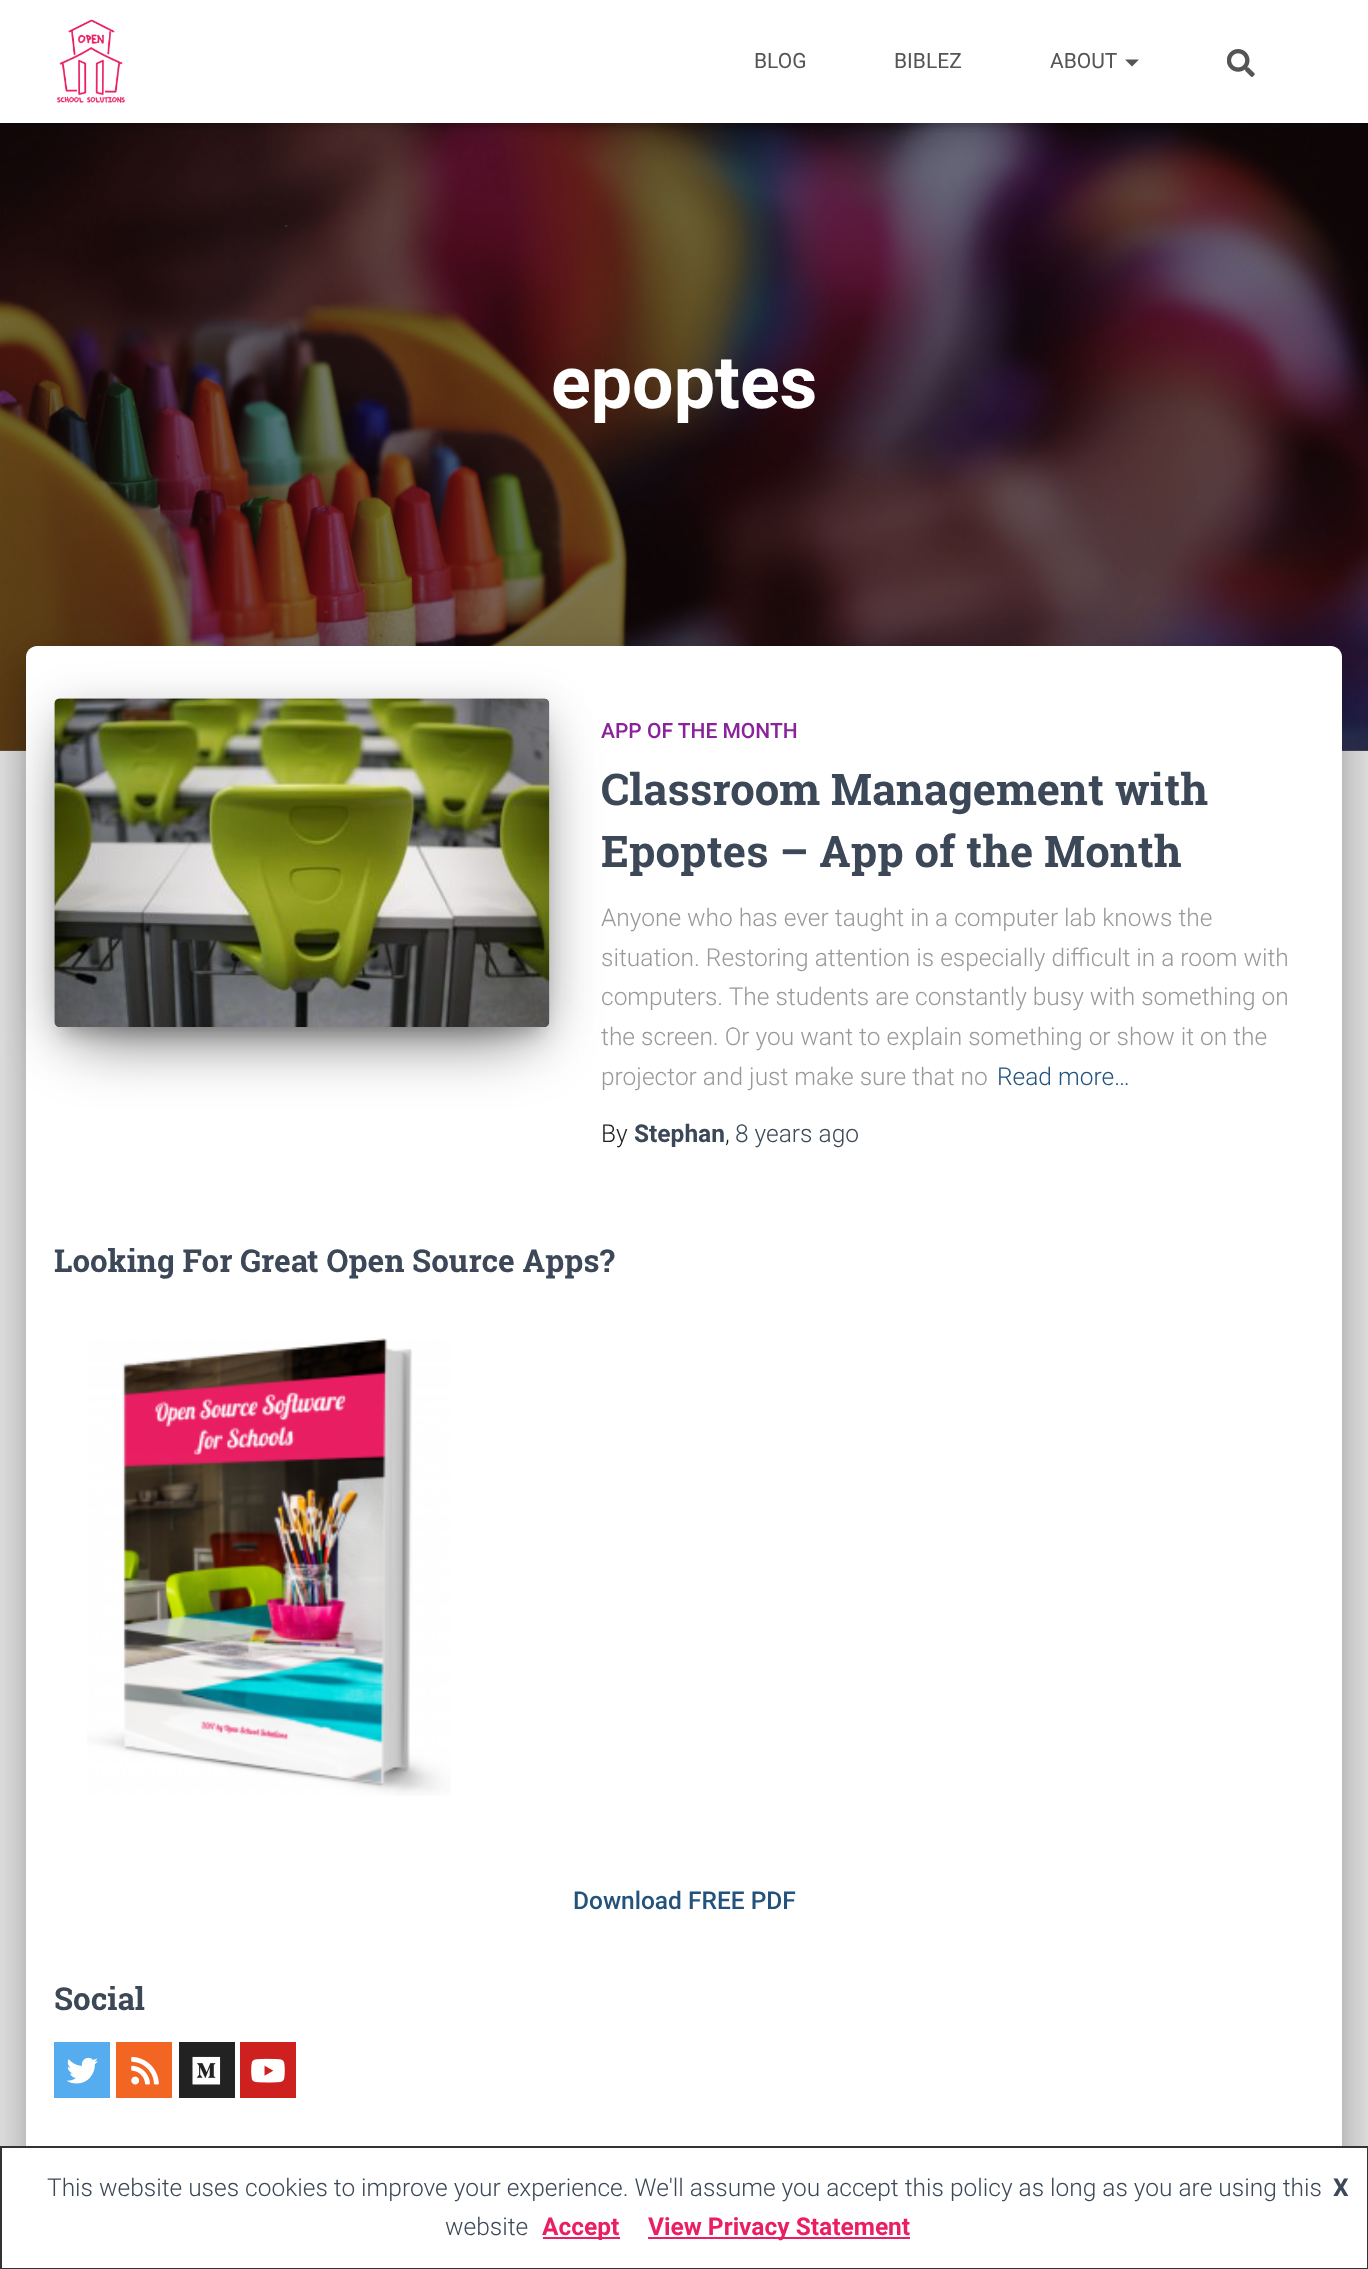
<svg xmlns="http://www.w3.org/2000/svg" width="1368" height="2269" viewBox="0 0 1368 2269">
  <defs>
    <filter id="blur1" x="-50%" y="-200%" width="200%" height="500%"><feGaussianBlur stdDeviation="4.5"/></filter>
    <filter id="blur2" x="-50%" y="-200%" width="200%" height="500%"><feGaussianBlur stdDeviation="9"/></filter>
    <filter id="blur3" x="-50%" y="-200%" width="200%" height="500%"><feGaussianBlur stdDeviation="26"/></filter>
    <filter id="blur4" x="-50%" y="-200%" width="200%" height="500%"><feGaussianBlur stdDeviation="21"/></filter>
    <filter id="blur5" x="-50%" y="-200%" width="200%" height="500%"><feGaussianBlur stdDeviation="22"/></filter>
    <filter id="blur6" x="-50%" y="-200%" width="200%" height="500%"><feGaussianBlur stdDeviation="33"/></filter>
  </defs>
  <rect width="100%" height="100%" fill="#e5e5e5"/>
  <rect x="0" y="750" width="1368" height="1" fill="#737373"/>
  <image x="0" y="123" width="1368" height="628" href="img3.png"/>
  <rect x="4" y="11" width="1361" height="115" fill="#000000" fill-opacity="0.1" filter="url(#blur1)"/>
  <rect x="0" y="2" width="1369" height="122" fill="#000000" fill-opacity="0.12" filter="url(#blur2)"/>
  <rect x="11" y="12" width="1347" height="102" fill="#000000" fill-opacity="0.42" filter="url(#blur2)"/>
  <rect x="0" y="0" width="1368" height="123" fill="#ffffff"/>
  <image x="57" y="19" width="69" height="84" href="img1.png"/>
  <text x="754" y="68" font-family="Roboto" font-size="21" fill="#555555">BLOG</text>
  <text x="894" y="68" font-family="Roboto" font-size="21" fill="#555555">BIBLEZ</text>
  <text x="1050" y="68" font-family="Roboto" font-size="21" fill="#555555">ABOUT</text>
  <path d="M1125 59.5H1139L1132 66.5Z" fill="#555555"/>
  <image x="1227" y="49" width="28" height="28" href="img2.png"/>
  <text x="551" y="408" font-family="Roboto" font-size="73.5" font-weight="bold" fill="#ffffff">epoptes</text>
  <rect x="35" y="669" width="1299" height="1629" rx="2" fill="#000000" fill-opacity="0.2" filter="url(#blur2)"/>
  <rect x="18" y="648" width="1333" height="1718" rx="19" fill="#000000" fill-opacity="0.12" filter="url(#blur3)"/>
  <rect x="23" y="670" width="1323" height="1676" rx="14" fill="#000000" fill-opacity="0.14" filter="url(#blur4)"/>
  <path d="M37 646H1331C1337 646 1342 651 1342 657V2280H26V657C26 651 31 646 37 646Z" fill="#ffffff"/>
  <rect x="63" y="721" width="478" height="312" fill="#000000" fill-opacity="0.2" filter="url(#blur2)"/>
  <rect x="54" y="705" width="496" height="329" rx="5" fill="#000000" fill-opacity="0.12" filter="url(#blur5)"/>
  <rect x="75" y="747" width="454" height="287" fill="#000000" fill-opacity="0.56" filter="url(#blur6)"/>
  <image x="54" y="698" width="496" height="329" href="img4.png"/>
  <text x="601" y="738" font-family="Roboto" font-size="21" font-weight="500" fill="#89229b">APP OF THE MONTH</text>
  <text x="601" y="805" font-family="Roboto Slab" font-size="43.75" font-weight="bold" fill="#3c4858">Classroom Management with</text>
  <text x="601" y="867" font-family="Roboto Slab" font-size="43.75" font-weight="bold" fill="#3c4858">Epoptes – App of the Month</text>
  <text x="601" y="926" font-family="Roboto" font-size="24.5" font-weight="300" fill="#999999">Anyone who has ever taught in a computer lab knows the</text>
  <text x="601" y="966" font-family="Roboto" font-size="24.5" font-weight="300" fill="#999999">situation. Restoring attention is especially difficult in a room with</text>
  <text x="601" y="1005" font-family="Roboto" font-size="24.5" font-weight="300" fill="#999999">computers. The students are constantly busy with something on</text>
  <text x="601" y="1045" font-family="Roboto" font-size="24.5" font-weight="300" fill="#999999">the screen. Or you want to explain something or show it on the</text>
  <text x="601" y="1085" font-family="Roboto" font-size="24.5" font-weight="300" fill="#999999">projector and just make sure that no</text>
  <text x="997" y="1085" font-family="Roboto" font-size="24.5" font-weight="300" fill="#23527c">Read more…</text>
  <text x="601" y="1142" font-family="Roboto" font-size="24.5" font-weight="300" fill="#212121">By</text>
  <text x="634" y="1142" font-family="Roboto" font-size="24.5" font-weight="bold" fill="#3c4858">Stephan</text>
  <text x="725" y="1142" font-family="Roboto" font-size="24.5" font-weight="300" fill="#212121">,</text>
  <text x="735" y="1142" font-family="Roboto" font-size="24.5" font-weight="300" fill="#3c4858">8 years ago</text>
  <text x="54" y="1272" font-family="Roboto Slab" font-size="31.5" font-weight="bold" fill="#3c4858">Looking For Great Open Source Apps?</text>
  <image x="87" y="1338" width="364" height="458" href="img5.png"/>
  <text x="573" y="1909" font-family="Roboto" font-size="24.5" font-weight="500" fill="#23527c">Download FREE PDF</text>
  <text x="54" y="2010" font-family="Roboto Slab" font-size="31.5" font-weight="bold" fill="#3c4858">Social</text>
  <rect x="54" y="2042" width="56" height="56" fill="#55acee"/>
  <image x="66" y="2057" width="32" height="27" href="img6.png"/>
  <rect x="116" y="2042" width="56" height="56" fill="#f26522"/>
  <image x="131" y="2056" width="28" height="29" href="img7.png"/>
  <rect x="179" y="2042" width="56" height="56" fill="#222222"/>
  <image x="192" y="2056" width="29" height="29" href="img8.png"/>
  <rect x="240" y="2042" width="56" height="56" fill="#cd201f"/>
  <image x="251" y="2058" width="34" height="25" href="img9.png"/>
  <rect x="1" y="2147" width="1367" height="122" fill="#ffffff" stroke="#333333" stroke-width="2"/>
  <text x="47" y="2196" font-family="Roboto" font-size="24.5" font-weight="300" fill="#3c4858">This website uses cookies to improve your experience. We'll assume you accept this policy as long as you are using this</text>
  <text x="1333" y="2196" font-family="Roboto" font-size="24.5" font-weight="bold" fill="#3c4858">X</text>
  <text x="445" y="2235" font-family="Roboto" font-size="24.5" font-weight="300" fill="#3c4858">website</text>
  <rect x="543" y="2237" width="77" height="2" fill="#e91e63"/>
  <text x="542" y="2235" font-family="Roboto" font-size="24.5" font-weight="bold" fill="#e91e63">Accept</text>
  <rect x="648" y="2237" width="262" height="2" fill="#e91e63"/>
  <text x="648" y="2235" font-family="Roboto" font-size="24.5" font-weight="bold" fill="#e91e63">View Privacy Statement</text>
</svg>
